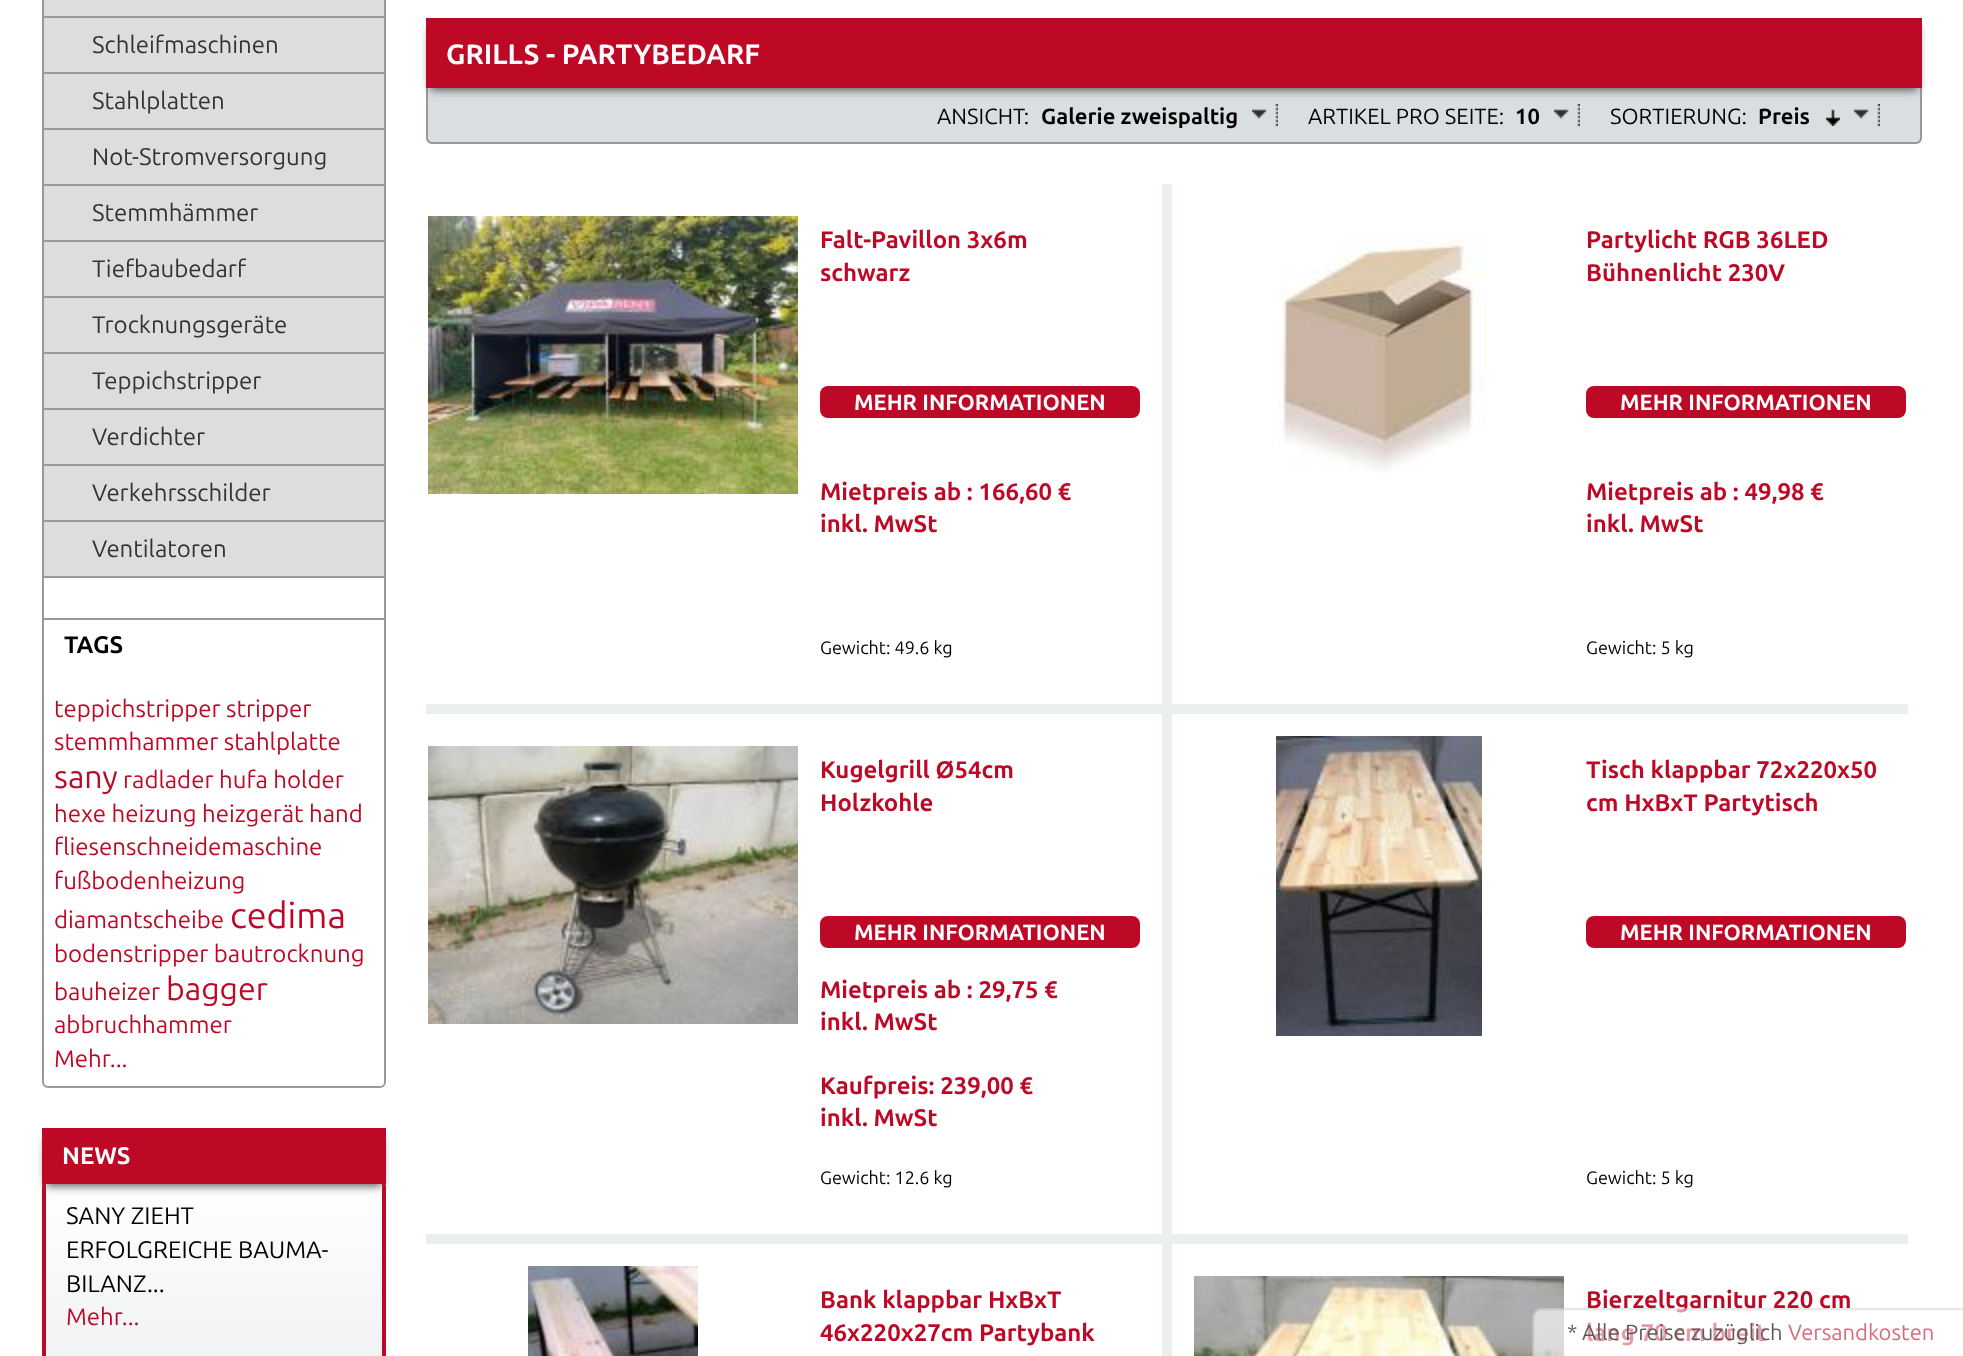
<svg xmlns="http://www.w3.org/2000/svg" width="1963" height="1356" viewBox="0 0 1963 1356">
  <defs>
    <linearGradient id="g1" gradientUnits="userSpaceOnUse" x1="214" y1="1180" x2="214" y2="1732"><stop offset="0" stop-color="#ffffff"/><stop offset="1" stop-color="#d1d8db"/></linearGradient>
    <filter id="blur1" x="-50%" y="-200%" width="200%" height="500%"><feGaussianBlur stdDeviation="5"/></filter>
  </defs>
  <rect width="100%" height="100%" fill="#ffffff"/>
  <rect x="43" y="-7" width="342" height="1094" rx="5" fill="none" stroke="#999999" stroke-width="2"/>
  <rect x="44" y="0" width="340" height="576" fill="#dddddd"/>
  <rect x="44" y="16" width="340" height="2" fill="#999999"/>
  <rect x="44" y="72" width="340" height="2" fill="#999999"/>
  <text x="92" y="53" font-family="Ubuntu" font-size="24" fill="#333333">Schleifmaschinen</text>
  <rect x="44" y="128" width="340" height="2" fill="#999999"/>
  <text x="92" y="109" font-family="Ubuntu" font-size="24" fill="#333333">Stahlplatten</text>
  <rect x="44" y="184" width="340" height="2" fill="#999999"/>
  <text x="92" y="165" font-family="Ubuntu" font-size="24" fill="#333333">Not-Stromversorgung</text>
  <rect x="44" y="240" width="340" height="2" fill="#999999"/>
  <text x="92" y="221" font-family="Ubuntu" font-size="24" fill="#333333">Stemmhämmer</text>
  <rect x="44" y="296" width="340" height="2" fill="#999999"/>
  <text x="92" y="277" font-family="Ubuntu" font-size="24" fill="#333333">Tiefbaubedarf</text>
  <rect x="44" y="352" width="340" height="2" fill="#999999"/>
  <text x="92" y="333" font-family="Ubuntu" font-size="24" fill="#333333">Trocknungsgeräte</text>
  <rect x="44" y="408" width="340" height="2" fill="#999999"/>
  <text x="92" y="389" font-family="Ubuntu" font-size="24" fill="#333333">Teppichstripper</text>
  <rect x="44" y="464" width="340" height="2" fill="#999999"/>
  <text x="92" y="445" font-family="Ubuntu" font-size="24" fill="#333333">Verdichter</text>
  <rect x="44" y="520" width="340" height="2" fill="#999999"/>
  <text x="92" y="501" font-family="Ubuntu" font-size="24" fill="#333333">Verkehrsschilder</text>
  <rect x="44" y="576" width="340" height="2" fill="#999999"/>
  <text x="92" y="557" font-family="Ubuntu" font-size="24" fill="#333333">Ventilatoren</text>
  <rect x="44" y="618" width="340" height="2" fill="#999999"/>
  <text x="64" y="653" font-family="Ubuntu" font-size="24" font-weight="bold" fill="#000000">TAGS</text>
  <text x="54" y="717" font-family="Ubuntu" font-size="24" fill="#bd0926">teppichstripper stripper</text>
  <text x="54" y="750" font-family="Ubuntu" font-size="24" fill="#bd0926">stemmhammer stahlplatte</text>
  <text x="54" y="788" font-family="Ubuntu" font-size="32" fill="#bd0926">sany</text>
  <text x="123" y="788" font-family="Ubuntu" font-size="24" fill="#bd0926">radlader hufa holder</text>
  <text x="54" y="822" font-family="Ubuntu" font-size="24" fill="#bd0926">hexe heizung heizgerät hand</text>
  <text x="54" y="855" font-family="Ubuntu" font-size="24" fill="#bd0926">fliesenschneidemaschine</text>
  <text x="54" y="889" font-family="Ubuntu" font-size="24" fill="#bd0926">fußbodenheizung</text>
  <text x="54" y="928" font-family="Ubuntu" font-size="24" fill="#bd0926">diamantscheibe</text>
  <text x="230" y="928" font-family="Ubuntu" font-size="36" fill="#bd0926">cedima</text>
  <text x="54" y="962" font-family="Ubuntu" font-size="24" fill="#bd0926">bodenstripper bautrocknung</text>
  <text x="54" y="1000" font-family="Ubuntu" font-size="24" fill="#bd0926">bauheizer</text>
  <text x="166" y="1000" font-family="Ubuntu" font-size="32" fill="#bd0926">bagger</text>
  <text x="54" y="1033" font-family="Ubuntu" font-size="24" fill="#bd0926">abbruchhammer</text>
  <text x="54" y="1067" font-family="Ubuntu" font-size="24" fill="#bd0926">Mehr...</text>
  <path d="M48 1180H380C383.5 1180 386 1182.5 386 1186V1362H42V1186C42 1182.5 44.5 1180 48 1180Z" fill="url(#g1)"/>
  <path d="M48 1180H380C383 1180 386 1183 386 1186V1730C386 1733 383 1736 380 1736H48C45 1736 42 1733 42 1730V1186C42 1183 45 1180 48 1180ZM48 1180H380C381 1180 382 1183 382 1186V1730C382 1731 381 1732 380 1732H48C47 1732 46 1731 46 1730V1186C46 1183 47 1180 48 1180Z" fill="#bd0926" fill-rule="evenodd"/>
  <rect x="46" y="1138" width="336" height="48" fill="#555555" filter="url(#blur1)"/>
  <rect x="42" y="1128" width="344" height="56" fill="#bd0926"/>
  <text x="62" y="1164" font-family="Ubuntu" font-size="24" font-weight="bold" fill="#ffffff">NEWS</text>
  <text x="66" y="1224" font-family="Ubuntu" font-size="24" fill="#000000">SANY ZIEHT</text>
  <text x="66" y="1258" font-family="Ubuntu" font-size="24" fill="#000000">ERFOLGREICHE BAUMA-</text>
  <text x="66" y="1292" font-family="Ubuntu" font-size="24" fill="#000000">BILANZ...</text>
  <text x="66" y="1325" font-family="Ubuntu" font-size="24" fill="#bd0926">Mehr...</text>
  <path d="M426 88H1922V138C1922 141.5 1919.5 144 1916 144H432C428.5 144 426 141.5 426 138Z" fill="#d9dfe1"/>
  <path d="M426 88H1922V138C1922 141 1919 144 1916 144H432C429 144 426 141 426 138ZM428 88H1920V138C1920 140 1918 142 1916 142H432C430 142 428 140 428 138Z" fill="#999999" fill-rule="evenodd"/>
  <image x="1252" y="104" width="26" height="22" href="img1.png"/>
  <image x="1554" y="104" width="26" height="22" href="img1.png"/>
  <image x="1854" y="104" width="26" height="22" href="img1.png"/>
  <rect x="430" y="28" width="1488" height="62" fill="#555555" filter="url(#blur1)"/>
  <rect x="426" y="18" width="1496" height="70" fill="#bd0926"/>
  <text x="446" y="64" font-family="Ubuntu" font-size="28" font-weight="bold" fill="#ffffff">GRILLS - PARTYBEDARF</text>
  <text x="937" y="124" font-family="Ubuntu" font-size="22" fill="#000000">ANSICHT:</text>
  <text x="1041" y="124" font-family="Ubuntu" font-size="22" font-weight="bold" fill="#000000">Galerie zweispaltig</text>
  <text x="1308" y="124" font-family="Ubuntu" font-size="22" fill="#000000">ARTIKEL PRO SEITE:</text>
  <text x="1515" y="124" font-family="Ubuntu" font-size="22" font-weight="bold" fill="#000000">10</text>
  <text x="1610" y="124" font-family="Ubuntu" font-size="22" fill="#000000">SORTIERUNG:</text>
  <text x="1758" y="124" font-family="Ubuntu" font-size="22" font-weight="bold" fill="#000000">Preis</text>
  <image x="1826" y="109" width="14" height="17" href="img2.png"/>
  <rect x="1162" y="184" width="10" height="1172" fill="#eceff0"/>
  <image x="428" y="216" width="370" height="278" href="img3.png"/>
  <text x="820" y="248" font-family="Ubuntu" font-size="24" font-weight="bold" fill="#bd0926">Falt-Pavillon 3x6m</text>
  <text x="820" y="281" font-family="Ubuntu" font-size="24" font-weight="bold" fill="#bd0926">schwarz</text>
  <rect x="820" y="386" width="320" height="32" rx="8" fill="#bd0926"/>
  <text x="854" y="410" font-family="Ubuntu" font-size="22" font-weight="bold" fill="#ffffff">MEHR INFORMATIONEN</text>
  <text x="820" y="500" font-family="Ubuntu" font-size="24" font-weight="bold" fill="#bd0926">Mietpreis ab : 166,60 €</text>
  <text x="820" y="532" font-family="Ubuntu" font-size="24" font-weight="bold" fill="#bd0926">inkl. MwSt</text>
  <text x="820" y="654" font-family="Ubuntu" font-size="18" fill="#000000">Gewicht: 49.6 kg</text>
  <image x="1278" y="238" width="208" height="235" href="img4.png"/>
  <text x="1586" y="248" font-family="Ubuntu" font-size="24" font-weight="bold" fill="#bd0926">Partylicht RGB 36LED</text>
  <text x="1586" y="281" font-family="Ubuntu" font-size="24" font-weight="bold" fill="#bd0926">Bühnenlicht 230V</text>
  <rect x="1586" y="386" width="320" height="32" rx="8" fill="#bd0926"/>
  <text x="1620" y="410" font-family="Ubuntu" font-size="22" font-weight="bold" fill="#ffffff">MEHR INFORMATIONEN</text>
  <text x="1586" y="500" font-family="Ubuntu" font-size="24" font-weight="bold" fill="#bd0926">Mietpreis ab : 49,98 €</text>
  <text x="1586" y="532" font-family="Ubuntu" font-size="24" font-weight="bold" fill="#bd0926">inkl. MwSt</text>
  <text x="1586" y="654" font-family="Ubuntu" font-size="18" fill="#000000">Gewicht: 5 kg</text>
  <rect x="426" y="704" width="736" height="10" fill="#eceff0"/>
  <image x="428" y="746" width="370" height="278" href="img5.png"/>
  <text x="820" y="778" font-family="Ubuntu" font-size="24" font-weight="bold" fill="#bd0926">Kugelgrill Ø54cm</text>
  <text x="820" y="811" font-family="Ubuntu" font-size="24" font-weight="bold" fill="#bd0926">Holzkohle</text>
  <rect x="820" y="916" width="320" height="32" rx="8" fill="#bd0926"/>
  <text x="854" y="940" font-family="Ubuntu" font-size="22" font-weight="bold" fill="#ffffff">MEHR INFORMATIONEN</text>
  <text x="820" y="998" font-family="Ubuntu" font-size="24" font-weight="bold" fill="#bd0926">Mietpreis ab : 29,75 €</text>
  <text x="820" y="1030" font-family="Ubuntu" font-size="24" font-weight="bold" fill="#bd0926">inkl. MwSt</text>
  <text x="820" y="1094" font-family="Ubuntu" font-size="24" font-weight="bold" fill="#bd0926">Kaufpreis: 239,00 €</text>
  <text x="820" y="1126" font-family="Ubuntu" font-size="24" font-weight="bold" fill="#bd0926">inkl. MwSt</text>
  <text x="820" y="1184" font-family="Ubuntu" font-size="18" fill="#000000">Gewicht: 12.6 kg</text>
  <rect x="1172" y="704" width="736" height="10" fill="#eceff0"/>
  <image x="1276" y="736" width="206" height="300" href="img6.png"/>
  <text x="1586" y="778" font-family="Ubuntu" font-size="24" font-weight="bold" fill="#bd0926">Tisch klappbar 72x220x50</text>
  <text x="1586" y="811" font-family="Ubuntu" font-size="24" font-weight="bold" fill="#bd0926">cm HxBxT Partytisch</text>
  <rect x="1586" y="916" width="320" height="32" rx="8" fill="#bd0926"/>
  <text x="1620" y="940" font-family="Ubuntu" font-size="22" font-weight="bold" fill="#ffffff">MEHR INFORMATIONEN</text>
  <text x="1586" y="1184" font-family="Ubuntu" font-size="18" fill="#000000">Gewicht: 5 kg</text>
  <rect x="426" y="1234" width="736" height="10" fill="#eceff0"/>
  <image x="528" y="1266" width="170" height="90" href="img7.png"/>
  <text x="820" y="1308" font-family="Ubuntu" font-size="24" font-weight="bold" fill="#bd0926">Bank klappbar HxBxT</text>
  <text x="820" y="1341" font-family="Ubuntu" font-size="24" font-weight="bold" fill="#bd0926">46x220x27cm Partybank</text>
  <rect x="1172" y="1234" width="736" height="10" fill="#eceff0"/>
  <image x="1194" y="1276" width="370" height="80" href="img8.png"/>
  <text x="1586" y="1308" font-family="Ubuntu" font-size="24" font-weight="bold" fill="#bd0926">Bierzeltgarnitur 220 cm</text>
  <text x="1586" y="1341" font-family="Ubuntu" font-size="24" font-weight="bold" fill="#bd0926">lang 70 cm breit</text>
  <image x="1532" y="1308" width="431" height="48" href="img9.png"/>
  <text x="1567" y="1340" font-family="Ubuntu" font-size="22" fill="#666666">*</text>
  <text x="1582" y="1340" font-family="Ubuntu" font-size="22" fill="#625859">Alle Preise zuzüglich</text>
  <text x="1788" y="1340" font-family="Ubuntu" font-size="22" fill="#d76b7d">Versandkosten</text>
</svg>
